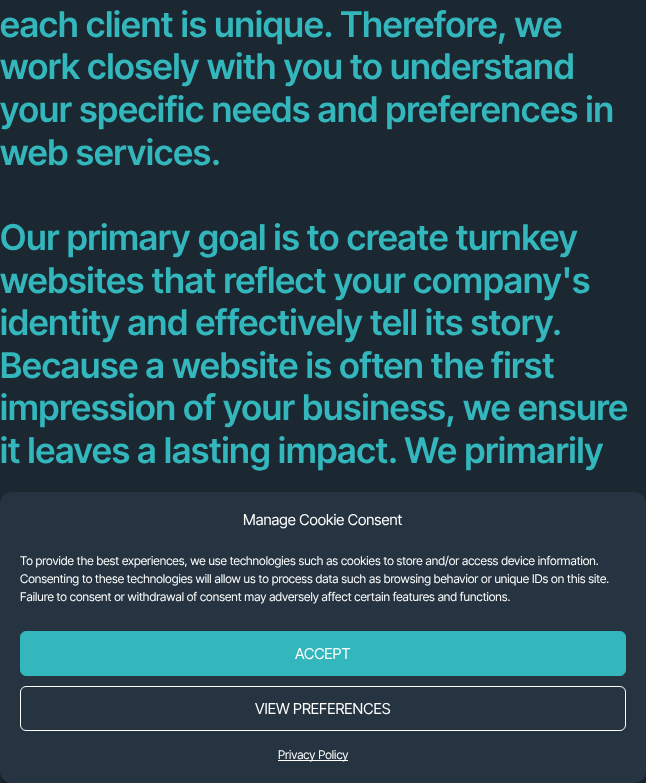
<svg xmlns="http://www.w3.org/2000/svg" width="646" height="783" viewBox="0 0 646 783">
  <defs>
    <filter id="blur1" x="-50%" y="-200%" width="200%" height="500%"><feGaussianBlur stdDeviation="3"/></filter>
  </defs>
  <rect width="100%" height="100%" fill="#1c2831"/>
  <text x="0" y="37" font-family="Inter Tight" font-size="35.5" font-weight="600" fill="#33b6bc">each client is unique. Therefore, we</text>
  <text x="0" y="79" font-family="Inter Tight" font-size="35.5" font-weight="600" fill="#33b6bc">work closely with you to understand</text>
  <text x="0" y="122" font-family="Inter Tight" font-size="35.5" font-weight="600" fill="#33b6bc">your specific needs and preferences in</text>
  <text x="0" y="165" font-family="Inter Tight" font-size="35.5" font-weight="600" fill="#33b6bc">web services.</text>
  <text x="0" y="250" font-family="Inter Tight" font-size="35.5" font-weight="600" fill="#33b6bc">Our primary goal is to create turnkey</text>
  <text x="0" y="293" font-family="Inter Tight" font-size="35.5" font-weight="600" fill="#33b6bc">websites that reflect your company's</text>
  <text x="0" y="335" font-family="Inter Tight" font-size="35.5" font-weight="600" fill="#33b6bc">identity and effectively tell its story.</text>
  <text x="0" y="378" font-family="Inter Tight" font-size="35.5" font-weight="600" fill="#33b6bc">Because a website is often the first</text>
  <text x="0" y="420" font-family="Inter Tight" font-size="35.5" font-weight="600" fill="#33b6bc">impression of your business, we ensure</text>
  <text x="0" y="463" font-family="Inter Tight" font-size="35.5" font-weight="600" fill="#33b6bc">it leaves a lasting impact. We primarily</text>
  <rect x="0" y="498" width="646" height="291" rx="12" fill="#000000" fill-opacity="0.23" filter="url(#blur1)"/>
  <rect x="0" y="492" width="646" height="291" rx="12" fill="#253440"/>
  <text x="243" y="525" font-family="Inter Tight" font-size="15" fill="#ffffff">Manage Cookie Consent</text>
  <text x="20" y="565" font-family="Inter Tight" font-size="12" fill="#ffffff">To provide the best experiences, we use technologies such as cookies to store and/or access device information.</text>
  <text x="20" y="583" font-family="Inter Tight" font-size="12" fill="#ffffff">Consenting to these technologies will allow us to process data such as browsing behavior or unique IDs on this site.</text>
  <text x="20" y="601" font-family="Inter Tight" font-size="12" fill="#ffffff">Failure to consent or withdrawal of consent may adversely affect certain features and functions.</text>
  <rect x="20.5" y="631.5" width="605" height="44" rx="5.5" fill="#33b6bc" stroke="#33b6bc"/>
  <text x="295" y="659" font-family="Inter Tight" font-size="15" fill="#ffffff">ACCEPT</text>
  <rect x="20.5" y="686.5" width="605" height="44" rx="5.5" fill="none" stroke="#ffffff"/>
  <text x="255" y="714" font-family="Inter Tight" font-size="15" fill="#ffffff">VIEW PREFERENCES</text>
  <rect x="278" y="760" width="70" height="1" fill="#ffffff"/>
  <text x="278" y="759" font-family="Inter Tight" font-size="12" fill="#ffffff">Privacy Policy</text>
</svg>
